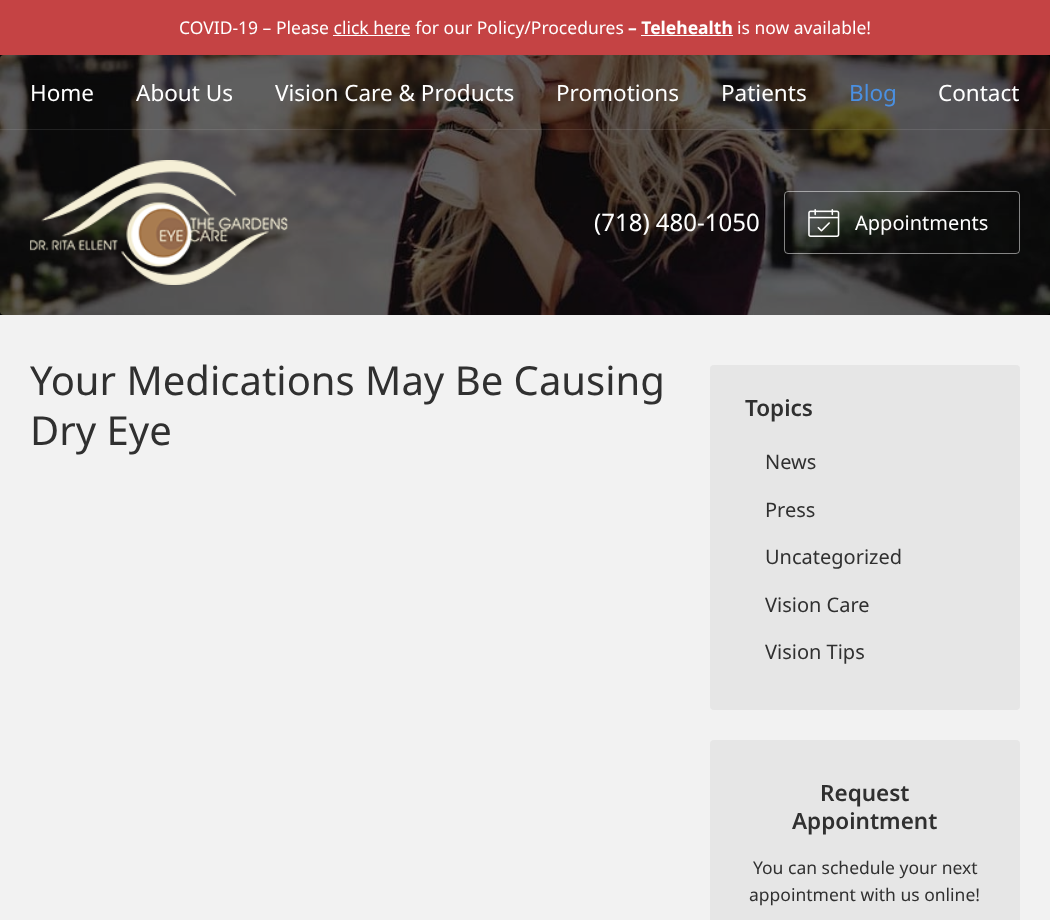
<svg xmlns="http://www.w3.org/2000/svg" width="1050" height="920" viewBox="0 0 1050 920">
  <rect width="100%" height="100%" fill="#f2f2f2"/>
  <rect x="0" y="0" width="1050" height="55" fill="#c54344"/>
  <text x="179" y="34" font-family="Noto Sans" font-size="17.5" fill="#ffffff">COVID-19 – Please click here for our Policy/Procedures</text>
  <text x="628" y="34" font-family="Noto Sans" font-size="17.5" font-weight="bold" fill="#ffffff">– Telehealth</text>
  <text x="737" y="34" font-family="Noto Sans" font-size="17.5" fill="#ffffff">is now available!</text>
  <rect x="333" y="35" width="77" height="1" fill="#ffffff"/>
  <rect x="641" y="35" width="92" height="1" fill="#ffffff"/>
  <rect x="0" y="55" width="1050" height="260" fill="#000000"/>
  <image x="0" y="55" width="1050" height="260" href="img1.png"/>
  <rect x="0" y="129" width="1050" height="1" fill="#ffffff" fill-opacity="0.1"/>
  <text x="30" y="101" font-family="Noto Sans" font-size="22.5" fill="#ffffff">Home</text>
  <text x="136" y="101" font-family="Noto Sans" font-size="22.5" fill="#ffffff">About Us</text>
  <text x="275" y="101" font-family="Noto Sans" font-size="22.5" fill="#ffffff">Vision Care &amp; Products</text>
  <text x="556" y="101" font-family="Noto Sans" font-size="22.5" fill="#ffffff">Promotions</text>
  <text x="721" y="101" font-family="Noto Sans" font-size="22.5" fill="#ffffff">Patients</text>
  <text x="849" y="101" font-family="Noto Sans" font-size="22.5" fill="#4a90e2">Blog</text>
  <text x="938" y="101" font-family="Noto Sans" font-size="22.5" fill="#ffffff">Contact</text>
  <image x="30" y="160" width="258" height="125" href="img2.png"/>
  <text x="594" y="231" font-family="Noto Sans" font-size="24" fill="#ffffff">(718) 480-1050</text>
  <rect x="788" y="191" width="141" height="54" fill="#000000" fill-opacity="0.05"/>
  <rect x="784.5" y="191.5" width="235" height="62" rx="3.5" fill="none" stroke="#ffffff" stroke-opacity="0.5"/>
  <image x="808" y="209" width="32" height="28" href="img3.png"/>
  <text x="855" y="230" font-family="Noto Sans" font-size="20" fill="#ffffff">Appointments</text>
  <text x="30" y="395" font-family="Noto Sans" font-size="40" fill="#303030">Your Medications May Be Causing</text>
  <text x="30" y="445" font-family="Noto Sans" font-size="40" fill="#303030">Dry Eye</text>
  <rect x="710" y="365" width="310" height="345" rx="4" fill="#e6e6e6"/>
  <text x="745" y="416" font-family="Noto Sans" font-size="22.5" font-weight="600" fill="#303030">Topics</text>
  <text x="765" y="469" font-family="Noto Sans" font-size="20" fill="#303030">News</text>
  <text x="765" y="517" font-family="Noto Sans" font-size="20" fill="#303030">Press</text>
  <text x="765" y="564" font-family="Noto Sans" font-size="20" fill="#303030">Uncategorized</text>
  <text x="765" y="612" font-family="Noto Sans" font-size="20" fill="#303030">Vision Care</text>
  <text x="765" y="659" font-family="Noto Sans" font-size="20" fill="#303030">Vision Tips</text>
  <rect x="710" y="740" width="310" height="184" rx="4" fill="#e6e6e6"/>
  <text x="820" y="801" font-family="Noto Sans" font-size="22.5" font-weight="600" fill="#303030">Request</text>
  <text x="792" y="829" font-family="Noto Sans" font-size="22.5" font-weight="600" fill="#303030">Appointment</text>
  <text x="753" y="874" font-family="Noto Sans" font-size="17.5" fill="#303030">You can schedule your next</text>
  <text x="749" y="901" font-family="Noto Sans" font-size="17.5" fill="#303030">appointment with us online!</text>
</svg>
